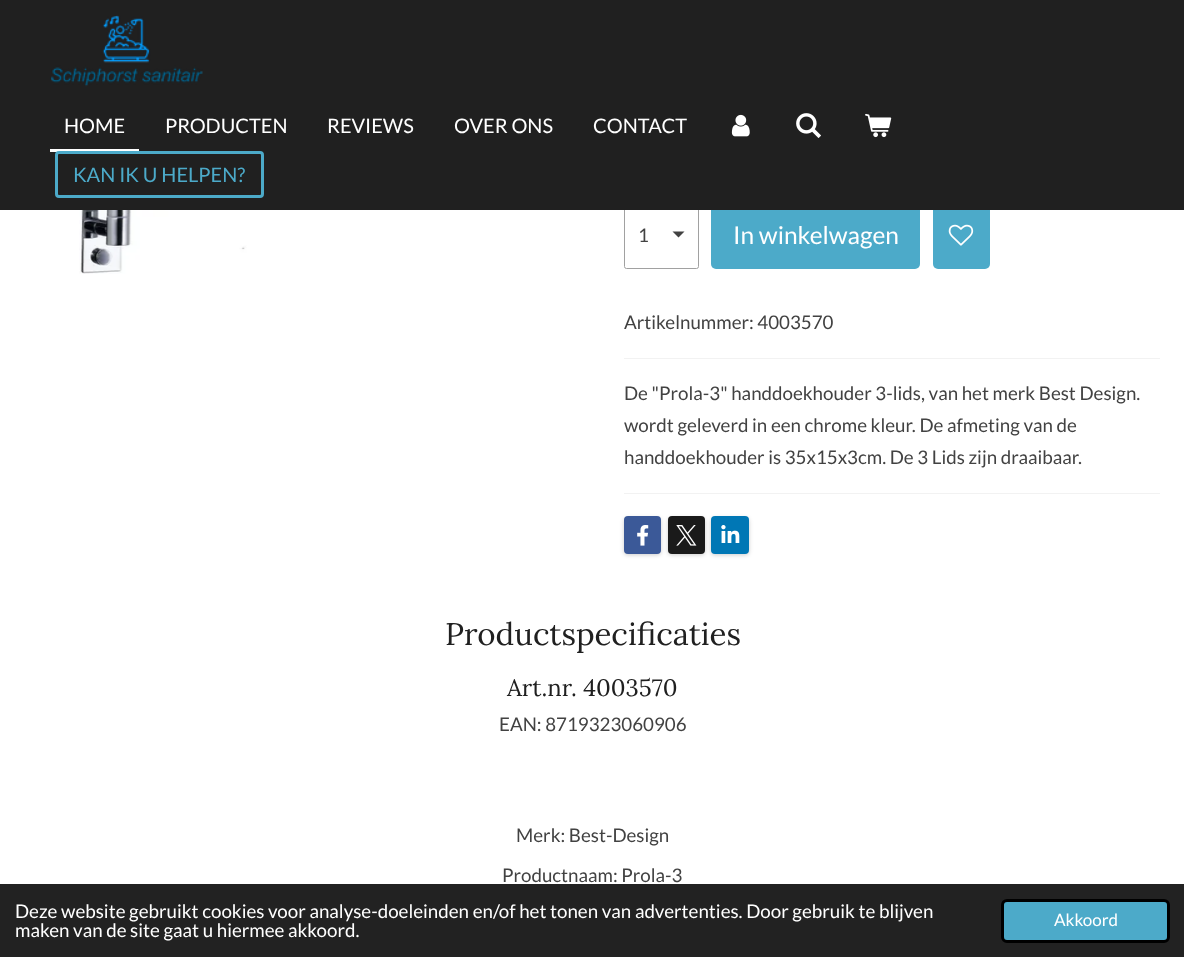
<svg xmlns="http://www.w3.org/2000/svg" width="1184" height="957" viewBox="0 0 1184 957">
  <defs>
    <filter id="blur1" x="-50%" y="-200%" width="200%" height="500%"><feGaussianBlur stdDeviation="2"/></filter>
  </defs>
  <rect width="100%" height="100%" fill="#ffffff"/>
  <path d="M678.5 237.5L672.5 231.5H684.5Z" fill="#424242"/>
  <rect x="624.5" y="200.5" width="74" height="68" rx="2" fill="none" stroke="#a1a1a1"/>
  <rect x="711" y="200" width="209" height="69" rx="5" fill="#4caac9"/>
  <rect x="933" y="200" width="57" height="69" rx="5" fill="#4caac9"/>
  <rect x="0" y="0" width="1184" height="210" fill="#202020"/>
  <image x="51" y="15" width="152" height="72" href="img1.png"/>
  <rect x="50" y="149" width="89" height="3" fill="#ffffff"/>
  <text x="64" y="133" font-family="Lato" font-size="20" fill="#ffffff">HOME</text>
  <text x="165" y="133" font-family="Lato" font-size="20" fill="#ffffff">PRODUCTEN</text>
  <text x="327" y="133" font-family="Lato" font-size="20" fill="#ffffff">REVIEWS</text>
  <text x="454" y="133" font-family="Lato" font-size="20" fill="#ffffff">OVER ONS</text>
  <text x="593" y="133" font-family="Lato" font-size="20" fill="#ffffff">CONTACT</text>
  <image x="731" y="114" width="19" height="23" href="img2.png"/>
  <image x="796" y="113" width="25" height="25" href="img3.png"/>
  <image x="865" y="113" width="27" height="25" href="img4.png"/>
  <rect x="56.5" y="152.5" width="206" height="44" rx="2.5" fill="none" stroke="#4caac9" stroke-width="3"/>
  <text x="73" y="182" font-family="Lato" font-size="20" fill="#4caac9">KAN IK U HELPEN?</text>
  <image x="79" y="210" width="432" height="64" href="img5.png"/>
  <text x="638" y="242" font-family="Lato" font-size="18.75" fill="#424242">1</text>
  <text x="733" y="244" font-family="Lato" font-size="24.5" fill="#ffffff">In winkelwagen</text>
  <image x="948" y="224" width="26" height="22" href="img6.png"/>
  <text x="624" y="329" font-family="Lato" font-size="18.75" fill="#424242">Artikelnummer: 4003570</text>
  <rect x="624" y="358" width="536" height="1" fill="#f2f2f2"/>
  <text x="624" y="400" font-family="Lato" font-size="18.75" fill="#424242">De "Prola-3" handdoekhouder 3-lids, van het merk Best Design.</text>
  <text x="624" y="432" font-family="Lato" font-size="18.75" fill="#424242">wordt geleverd in een chrome kleur. De afmeting van de</text>
  <text x="624" y="464" font-family="Lato" font-size="18.75" fill="#424242">handdoekhouder is 35x15x3cm. De 3 Lids zijn draaibaar.</text>
  <rect x="624" y="493" width="536" height="1" fill="#f2f2f2"/>
  <rect x="624" y="518" width="37" height="37" rx="4" fill="#000000" fill-opacity="0.2" filter="url(#blur1)"/>
  <rect x="624" y="516" width="37" height="38" rx="4" fill="#3b5998"/>
  <image x="637" y="525" width="12" height="21" href="img7.png"/>
  <rect x="668" y="518" width="37" height="37" rx="4" fill="#000000" fill-opacity="0.2" filter="url(#blur1)"/>
  <rect x="668" y="516" width="37" height="38" rx="4" fill="#1a1a1a"/>
  <image x="676" y="525" width="21" height="21" href="img8.png"/>
  <rect x="711" y="518" width="38" height="37" rx="4" fill="#000000" fill-opacity="0.2" filter="url(#blur1)"/>
  <rect x="711" y="516" width="38" height="38" rx="4" fill="#0077b5"/>
  <image x="721" y="525" width="19" height="18" href="img9.png"/>
  <text x="445" y="645" font-family="Lora" font-size="31.25" fill="#202020">Productspecificaties</text>
  <text x="507" y="696" font-family="Lora" font-size="23.75" fill="#202020">Art.nr. 4003570</text>
  <text x="499" y="731" font-family="Lato" font-size="18.75" fill="#424242">EAN: 8719323060906</text>
  <text x="516" y="842" font-family="Lato" font-size="18.75" fill="#424242">Merk: Best-Design</text>
  <text x="502" y="882" font-family="Lato" font-size="18.75" fill="#424242">Productnaam: Prola-3</text>
  <rect x="0" y="884" width="1184" height="73" fill="#222222"/>
  <text x="15" y="918" font-family="Lato" font-size="18.75" fill="#ffffff">Deze website gebruikt cookies voor analyse-doeleinden en/of het tonen van advertenties. Door gebruik te blijven</text>
  <text x="15" y="937" font-family="Lato" font-size="18.75" fill="#ffffff">maken van de site gaat u hiermee akkoord.</text>
  <rect x="1002.5" y="900.5" width="166" height="41" rx="4.5" fill="#4caac9" stroke="#000000" stroke-width="3"/>
  <text x="1054" y="926" font-family="Lato" font-size="17" fill="#ffffff">Akkoord</text>
</svg>
